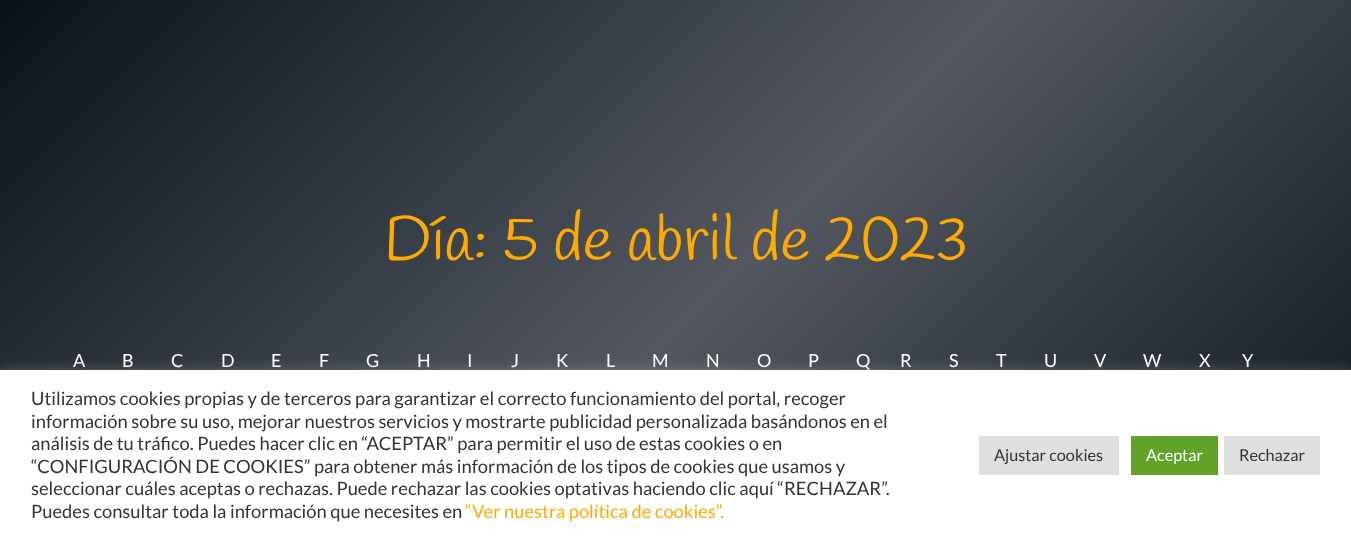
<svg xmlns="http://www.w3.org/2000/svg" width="1351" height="539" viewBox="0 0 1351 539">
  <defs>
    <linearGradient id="g1" gradientUnits="userSpaceOnUse" x1="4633" y1="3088" x2="773" y2="-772"><stop offset="0" stop-color="#09111b"/><stop offset="0.38" stop-color="#09111b"/><stop offset="0.5" stop-color="#535860"/><stop offset="0.62" stop-color="#09111b"/><stop offset="0.75" stop-color="#09111b"/><stop offset="0.87" stop-color="#535860"/><stop offset="1" stop-color="#09111b"/></linearGradient>
    <filter id="blur1" x="-50%" y="-200%" width="200%" height="500%"><feGaussianBlur stdDeviation="6"/></filter>
  </defs>
  <rect width="100%" height="100%" fill="#ffffff"/>
  <rect x="0" y="0" width="1351" height="370" fill="url(#g1)"/>
  <text x="384" y="260" font-family="Handlee" font-size="63" fill="#ffaa00">Día: 5 de abril de 2023</text>
  <text x="73" y="367" font-family="Lato" font-size="18" fill="#ffffff">A</text>
  <text x="122" y="367" font-family="Lato" font-size="18" fill="#ffffff">B</text>
  <text x="171" y="367" font-family="Lato" font-size="18" fill="#ffffff">C</text>
  <text x="221" y="367" font-family="Lato" font-size="18" fill="#ffffff">D</text>
  <text x="271" y="367" font-family="Lato" font-size="18" fill="#ffffff">E</text>
  <text x="319" y="367" font-family="Lato" font-size="18" fill="#ffffff">F</text>
  <text x="366" y="367" font-family="Lato" font-size="18" fill="#ffffff">G</text>
  <text x="417" y="367" font-family="Lato" font-size="18" fill="#ffffff">H</text>
  <text x="467" y="367" font-family="Lato" font-size="18" fill="#ffffff">I</text>
  <text x="511" y="367" font-family="Lato" font-size="18" fill="#ffffff">J</text>
  <text x="556" y="367" font-family="Lato" font-size="18" fill="#ffffff">K</text>
  <text x="606" y="367" font-family="Lato" font-size="18" fill="#ffffff">L</text>
  <text x="652" y="367" font-family="Lato" font-size="18" fill="#ffffff">M</text>
  <text x="706" y="367" font-family="Lato" font-size="18" fill="#ffffff">N</text>
  <text x="757" y="367" font-family="Lato" font-size="18" fill="#ffffff">O</text>
  <text x="808" y="367" font-family="Lato" font-size="18" fill="#ffffff">P</text>
  <text x="856" y="367" font-family="Lato" font-size="18" fill="#ffffff">Q</text>
  <text x="900" y="367" font-family="Lato" font-size="18" fill="#ffffff">R</text>
  <text x="949" y="367" font-family="Lato" font-size="18" fill="#ffffff">S</text>
  <text x="996" y="367" font-family="Lato" font-size="18" fill="#ffffff">T</text>
  <text x="1044" y="367" font-family="Lato" font-size="18" fill="#ffffff">U</text>
  <text x="1094" y="367" font-family="Lato" font-size="18" fill="#ffffff">V</text>
  <text x="1143" y="367" font-family="Lato" font-size="18" fill="#ffffff">W</text>
  <text x="1199" y="367" font-family="Lato" font-size="18" fill="#ffffff">X</text>
  <text x="1242" y="367" font-family="Lato" font-size="18" fill="#ffffff">Y</text>
  <rect x="0" y="369" width="1351" height="170" fill="#acabab" fill-opacity="0.3" filter="url(#blur1)"/>
  <rect x="0" y="370" width="1351" height="169" fill="#ffffff"/>
  <text x="31" y="405" font-family="Lato" font-size="18.35" fill="#333333">Utilizamos cookies propias y de terceros para garantizar el correcto funcionamiento del portal, recoger</text>
  <text x="31" y="428" font-family="Lato" font-size="18.35" fill="#333333">información sobre su uso, mejorar nuestros servicios y mostrarte publicidad personalizada basándonos en el</text>
  <text x="31" y="450" font-family="Lato" font-size="18.35" fill="#333333">análisis de tu tráfico. Puedes hacer clic en “ACEPTAR” para permitir el uso de estas cookies o en</text>
  <text x="31" y="473" font-family="Lato" font-size="18.35" fill="#333333">“CONFIGURACIÓN DE COOKIES” para obtener más información de los tipos de cookies que usamos y</text>
  <text x="31" y="495" font-family="Lato" font-size="18.35" fill="#333333">seleccionar cuáles aceptas o rechazas. Puede rechazar las cookies optativas haciendo clic aquí “RECHAZAR”.</text>
  <text x="31" y="518" font-family="Lato" font-size="18.35" fill="#333333">Puedes consultar toda la información que necesites en</text>
  <text x="465" y="518" font-family="Lato" font-size="18.35" fill="#ffaa00">“Ver nuestra política de cookies”.</text>
  <rect x="979" y="436" width="140" height="39" fill="#dedfe0"/>
  <text x="994" y="461" font-family="Lato" font-size="16.25" fill="#333333">Ajustar cookies</text>
  <rect x="1131" y="436" width="87" height="39" fill="#61a229"/>
  <text x="1146" y="461" font-family="Lato" font-size="16.25" fill="#ffffff">Aceptar</text>
  <rect x="1224" y="436" width="96" height="39" fill="#dedfe0"/>
  <text x="1239" y="461" font-family="Lato" font-size="16.25" fill="#333333">Rechazar</text>
</svg>
